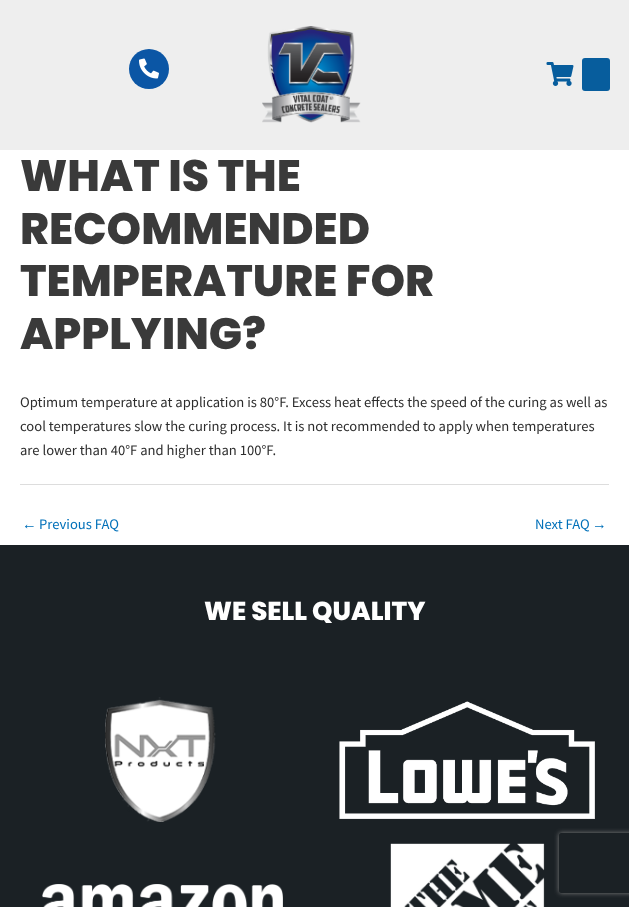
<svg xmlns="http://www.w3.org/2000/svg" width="629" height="907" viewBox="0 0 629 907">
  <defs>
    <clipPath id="clip1"><path d="M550 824H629V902H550ZM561 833H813C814 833 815 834 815 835V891C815 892 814 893 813 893H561C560 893 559 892 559 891V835C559 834 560 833 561 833Z" clip-rule="evenodd"/></clipPath>
    <filter id="blur1" x="-50%" y="-200%" width="200%" height="500%"><feGaussianBlur stdDeviation="2.5"/></filter>
  </defs>
  <rect width="100%" height="100%" fill="#ffffff"/>
  <rect x="0" y="0" width="629" height="150" fill="#eeeeee"/>
  <circle cx="149" cy="69" r="20" fill="#0b56a5"/>
  <image x="139" y="58" width="20" height="21" href="img1.png"/>
  <image x="262" y="26" width="99" height="97" href="img2.png"/>
  <image x="546" y="62" width="28" height="24" href="img3.png"/>
  <rect x="582" y="58" width="28" height="33" rx="3" fill="#075d9d"/>
  <text x="20" y="191" font-family="Poppins" font-size="44" font-weight="800" fill="#3a3a3a">WHAT IS THE</text>
  <text x="20" y="244" font-family="Poppins" font-size="44" font-weight="800" fill="#3a3a3a">RECOMMENDED</text>
  <text x="20" y="296" font-family="Poppins" font-size="44" font-weight="800" fill="#3a3a3a">TEMPERATURE FOR</text>
  <text x="20" y="349" font-family="Poppins" font-size="44" font-weight="800" fill="#3a3a3a">APPLYING?</text>
  <text x="20" y="407" font-family="Source Sans Pro" font-size="14.6" fill="#2d2d2d">Optimum temperature at application is 80°F. Excess heat effects the speed of the curing as well as</text>
  <text x="20" y="431" font-family="Source Sans Pro" font-size="14.6" fill="#2d2d2d">cool temperatures slow the curing process. It is not recommended to apply when temperatures</text>
  <text x="20" y="455" font-family="Source Sans Pro" font-size="14.6" fill="#2d2d2d">are lower than 40°F and higher than 100°F.</text>
  <rect x="20" y="484" width="589" height="1" fill="#dddddd"/>
  <text x="22" y="529" font-family="Liberation Sans" font-size="14.6" fill="#0170b9">←</text>
  <text x="39" y="529" font-family="Source Sans Pro" font-size="14.6" fill="#0170b9">Previous FAQ</text>
  <text x="535" y="529" font-family="Source Sans Pro" font-size="14.6" fill="#0170b9">Next FAQ</text>
  <text x="592" y="529" font-family="Liberation Sans" font-size="14.6" fill="#0170b9">→</text>
  <rect x="0" y="545" width="629" height="362" fill="#1b2125"/>
  <text x="204" y="620" font-family="Poppins" font-size="26" font-weight="800" fill="#ffffff">WE SELL QUALITY</text>
  <image x="105" y="697" width="111" height="125" href="img4.png"/>
  <image x="339" y="701" width="256" height="118" href="img5.png"/>
  <image x="42" y="884" width="241" height="23" href="img6.png"/>
  <image x="390" y="843" width="155" height="64" href="img7.png"/>
  <g clip-path="url(#clip1)">
    <rect x="559" y="833" width="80" height="60" rx="2" fill="#808080" filter="url(#blur1)"/>
  </g>
</svg>
